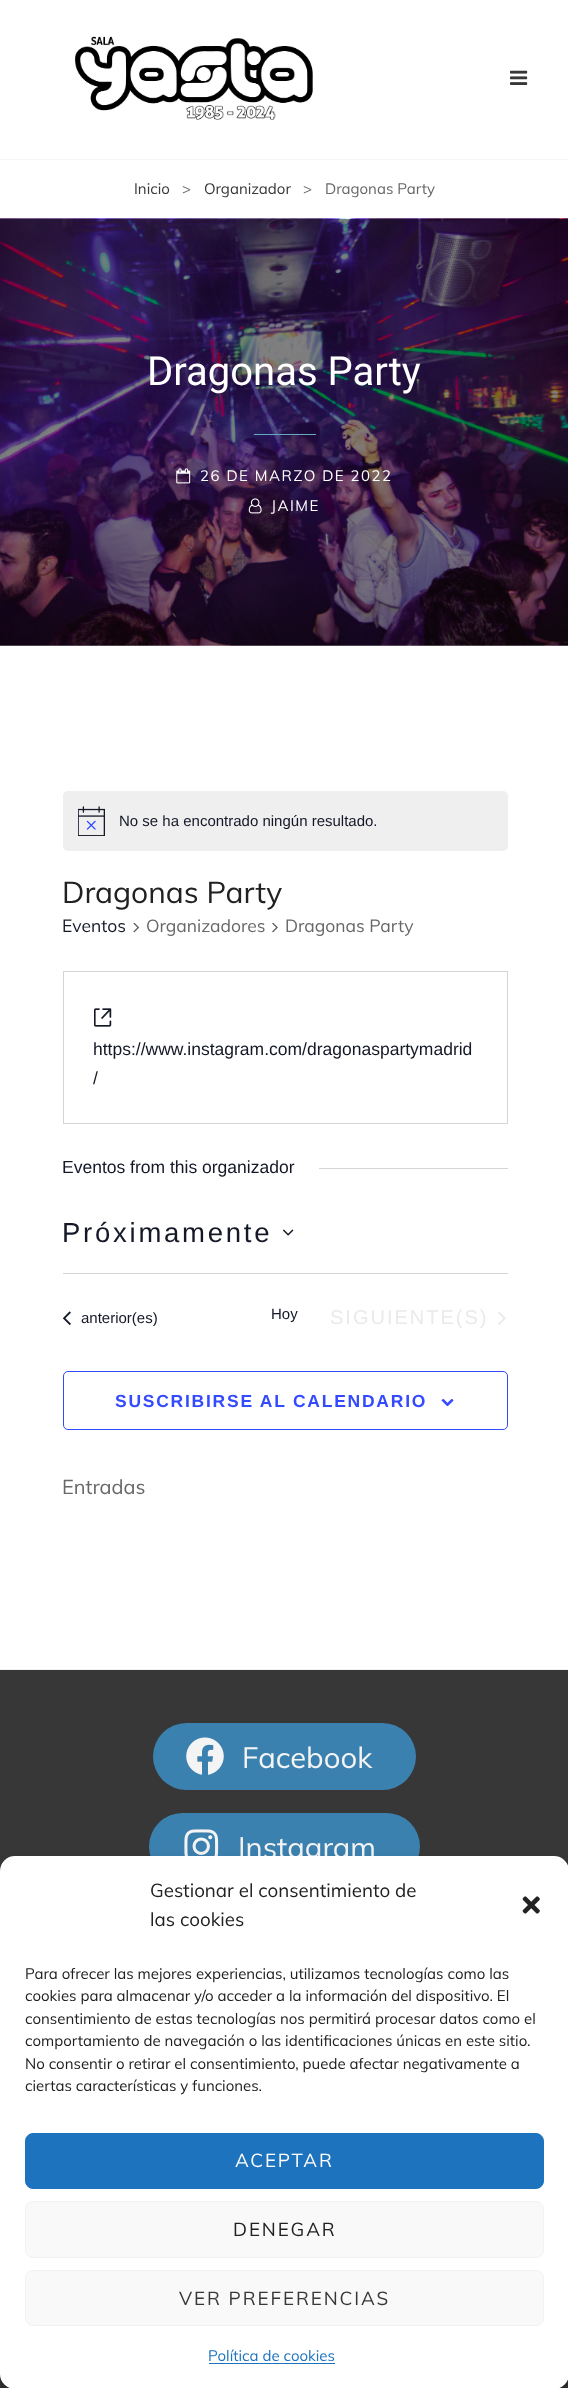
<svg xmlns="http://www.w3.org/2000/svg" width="568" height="2388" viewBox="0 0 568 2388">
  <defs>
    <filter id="blur1" x="-50%" y="-200%" width="200%" height="500%"><feGaussianBlur stdDeviation="4"/></filter>
    <filter id="blur2" x="-50%" y="-200%" width="200%" height="500%"><feGaussianBlur stdDeviation="12.5"/></filter>
  </defs>
  <rect width="100%" height="100%" fill="#ffffff"/>
  <rect x="0" y="159" width="568" height="1" fill="#f4f4f4"/>
  <image x="75" y="36" width="238" height="84" href="img1.png"/>
  <image x="510" y="70" width="18" height="15" href="img2.png"/>
  <text x="134" y="194" font-family="Muli" font-size="15" fill="#373737">Inicio</text>
  <text x="182" y="194" font-family="Muli" font-size="15" fill="#676767">&gt;</text>
  <text x="204" y="194" font-family="Muli" font-size="15" fill="#373737">Organizador</text>
  <text x="303" y="194" font-family="Muli" font-size="15" fill="#676767">&gt;</text>
  <text x="325" y="194" font-family="Muli" font-size="15" fill="#676767">Dragonas Party</text>
  <image x="0" y="218" width="568" height="428" href="img3.png"/>
  <text x="147" y="385" font-family="Roboto" font-size="40" fill="#ffffff">Dragonas Party</text>
  <rect x="254" y="434" width="62" height="1" fill="#64aabf"/>
  <image x="176" y="468" width="15" height="16" href="img4.png"/>
  <text x="200" y="481" font-family="Muli" font-size="15" letter-spacing="1.5" fill="#ffffff">26 DE MARZO DE 2022</text>
  <image x="248" y="498" width="14" height="16" href="img5.png"/>
  <text x="271" y="511" font-family="Muli" font-size="15" letter-spacing="1.5" fill="#ffffff">JAIME</text>
  <rect x="0" y="1669" width="568" height="1" fill="#f0f0f0"/>
  <rect x="63" y="791" width="445" height="60" rx="5" fill="#efeff0"/>
  <image x="78" y="806" width="27" height="30" href="img6.png"/>
  <text x="119" y="826" font-family="Liberation Sans" font-size="15" fill="#141827">No se ha encontrado ningún resultado.</text>
  <text x="62" y="903" font-family="Muli" font-size="30" fill="#212121">Dragonas Party</text>
  <text x="62" y="932" font-family="Muli" font-size="17.5" fill="#141827">Eventos</text>
  <image x="133" y="923" width="7" height="10" href="img7.png"/>
  <text x="146" y="932" font-family="Muli" font-size="17.5" fill="#676767">Organizadores</text>
  <image x="272" y="923" width="6" height="10" href="img8.png"/>
  <text x="285" y="932" font-family="Muli" font-size="17.5" fill="#676767">Dragonas Party</text>
  <rect x="63.5" y="971.5" width="444" height="152" fill="none" stroke="#d5d5d5"/>
  <image x="94" y="1008" width="18" height="19" href="img9.png"/>
  <text x="93" y="1055" font-family="Liberation Sans" font-size="17.5" fill="#141827">https://www.instagram.com/dragonaspartymadrid</text>
  <text x="93" y="1084" font-family="Liberation Sans" font-size="17.5" fill="#141827">/</text>
  <text x="62" y="1173" font-family="Liberation Sans" font-size="17.5" fill="#141827">Eventos from this organizador</text>
  <rect x="319" y="1168" width="189" height="1" fill="#d5d5d5"/>
  <text x="62" y="1242" font-family="Liberation Sans" font-size="27.5" letter-spacing="2.75" fill="#141827">Próximamente</text>
  <image x="283" y="1229" width="11" height="7" href="img10.png"/>
  <rect x="63" y="1273" width="445" height="1" fill="#d5d5d5"/>
  <image x="63" y="1311" width="8" height="14" href="img11.png"/>
  <text x="81" y="1323" font-family="Liberation Sans" font-size="15" fill="#141827">anterior(es)</text>
  <text x="271" y="1319" font-family="Liberation Sans" font-size="15" fill="#141827">Hoy</text>
  <text x="330" y="1324" font-family="Liberation Sans" font-size="20" letter-spacing="2" fill="#eaeaea">SIGUIENTE(S)</text>
  <image x="498" y="1311" width="8" height="14" href="img12.png"/>
  <rect x="63.5" y="1371.5" width="444" height="58" rx="4.5" fill="none" stroke="#334aff"/>
  <text x="115" y="1407" font-family="Liberation Sans" font-size="17.5" font-weight="bold" letter-spacing="1.75" fill="#334aff">SUSCRIBIRSE AL CALENDARIO</text>
  <image x="441" y="1399" width="13" height="7" href="img13.png"/>
  <text x="62" y="1494" font-family="Muli" font-size="20" fill="#676767">Entradas</text>
  <rect x="0" y="1670" width="568" height="718" fill="#373737"/>
  <rect x="153" y="1723" width="263" height="67" rx="33.5" fill="#3b81af"/>
  <image x="186" y="1737" width="38" height="38" href="img14.png"/>
  <text x="242" y="1768" font-family="Muli" font-size="29.25" fill="#f4f4f4">Facebook</text>
  <rect x="149" y="1813" width="271" height="67" rx="33.5" fill="#3b81af"/>
  <image x="184" y="1829" width="35" height="27" href="img15.png"/>
  <text x="238" y="1858" font-family="Muli" font-size="29.25" fill="#f4f4f4">Instagram</text>
  <rect x="0" y="1864" width="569" height="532" rx="15" fill="#000000" fill-opacity="0.23" filter="url(#blur1)"/>
  <rect x="0" y="1869" width="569" height="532" rx="15" fill="#000000" fill-opacity="0.19" filter="url(#blur2)"/>
  <rect x="0" y="1856" width="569" height="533" rx="15" fill="#ffffff"/>
  <text x="150" y="1897" font-family="Muli" font-size="18.75" fill="#212121">Gestionar el consentimiento de</text>
  <text x="150" y="1926" font-family="Muli" font-size="18.75" fill="#212121">las cookies</text>
  <image x="522" y="1896" width="18" height="18" href="img16.png"/>
  <text x="25" y="1979" font-family="Muli" font-size="15" fill="#212121">Para ofrecer las mejores experiencias, utilizamos tecnologías como las</text>
  <text x="25" y="2001" font-family="Muli" font-size="15" fill="#212121">cookies para almacenar y/o acceder a la información del dispositivo. El</text>
  <text x="25" y="2024" font-family="Muli" font-size="15" fill="#212121">consentimiento de estas tecnologías nos permitirá procesar datos como el</text>
  <text x="25" y="2046" font-family="Muli" font-size="15" fill="#212121">comportamiento de navegación o las identificaciones únicas en este sitio.</text>
  <text x="25" y="2069" font-family="Muli" font-size="15" fill="#212121">No consentir o retirar el consentimiento, puede afectar negativamente a</text>
  <text x="25" y="2091" font-family="Muli" font-size="15" fill="#212121">ciertas características y funciones.</text>
  <rect x="25.5" y="2133.5" width="518" height="55" rx="7.5" fill="#1e73be" stroke="#1e73be"/>
  <text x="235" y="2167" font-family="Muli" font-size="18.75" letter-spacing="1.9" fill="#ffffff">ACEPTAR</text>
  <rect x="25.5" y="2201.5" width="518" height="56" rx="7.5" fill="#f9f9f9" stroke="#f2f2f2"/>
  <text x="233" y="2236" font-family="Muli" font-size="18.75" letter-spacing="1.9" fill="#212121">DENEGAR</text>
  <rect x="25.5" y="2270.5" width="518" height="55" rx="7.5" fill="#f9f9f9" stroke="#f2f2f2"/>
  <text x="179" y="2305" font-family="Muli" font-size="18.75" letter-spacing="1.9" fill="#373737">VER PREFERENCIAS</text>
  <text x="208" y="2361" font-family="Muli" font-size="15" fill="#1e73be">Política de cookies</text>
  <rect x="209" y="2363" width="126" height="1" fill="#1e73be"/>
</svg>
